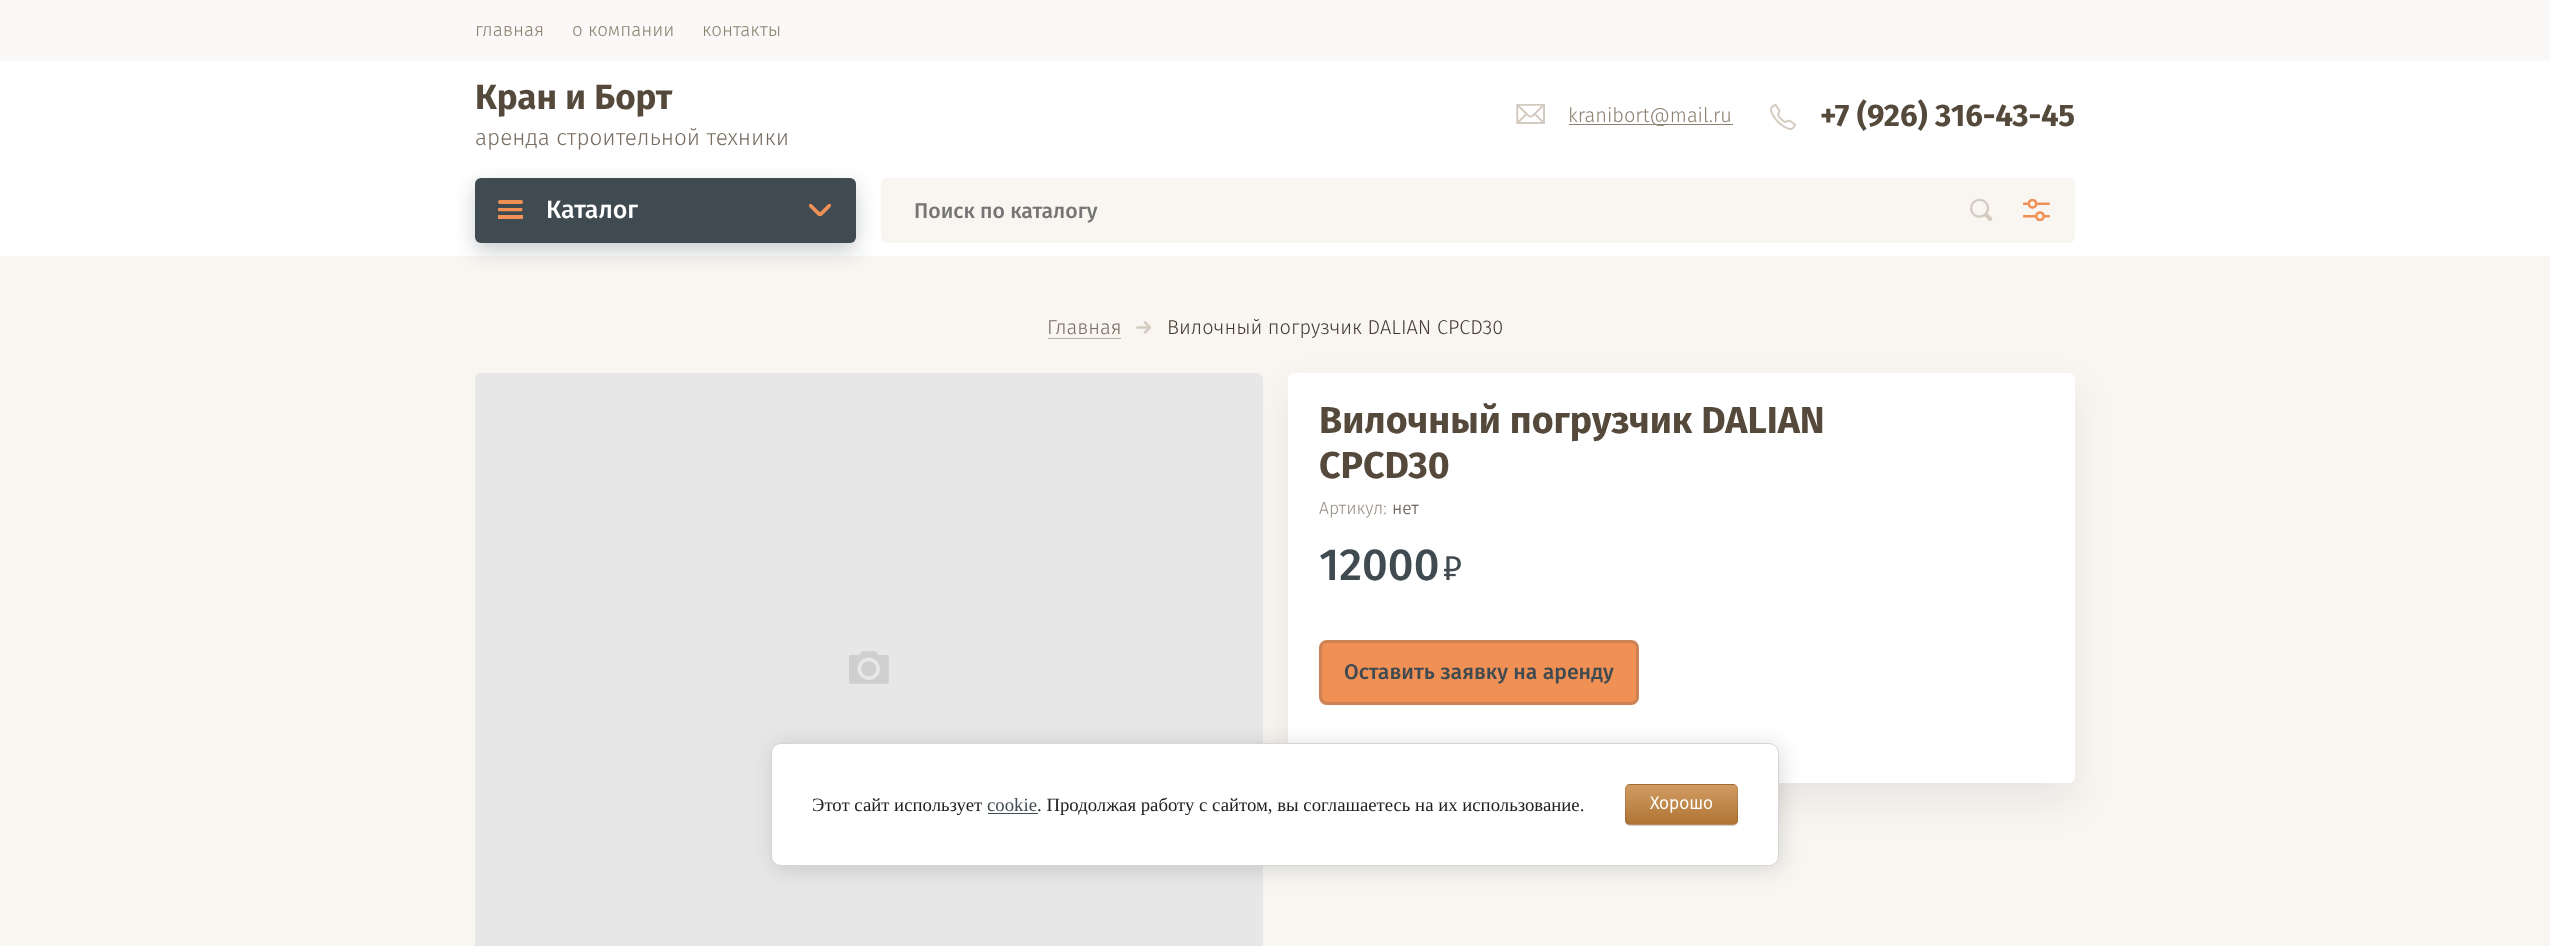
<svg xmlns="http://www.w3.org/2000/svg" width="2550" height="946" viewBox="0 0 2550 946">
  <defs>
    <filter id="blur1" x="-50%" y="-200%" width="200%" height="500%"><feGaussianBlur stdDeviation="9.5"/></filter>
    <filter id="blur2" x="-50%" y="-200%" width="200%" height="500%"><feGaussianBlur stdDeviation="19"/></filter>
    <filter id="blur3" x="-50%" y="-200%" width="200%" height="500%"><feGaussianBlur stdDeviation="11"/></filter>
    <filter id="blur4" x="-50%" y="-200%" width="200%" height="500%"><feGaussianBlur stdDeviation="0.5"/></filter>
    <clipPath id="clip1"><rect x="1625" y="784" width="113" height="41" rx="5"/></clipPath>
    <linearGradient id="g1" gradientUnits="userSpaceOnUse" x1="1681" y1="746" x2="1681" y2="785"><stop offset="0" stop-color="#d09b62"/><stop offset="1" stop-color="#b07535"/></linearGradient>
    <linearGradient id="g2" gradientUnits="userSpaceOnUse" x1="1681" y1="785" x2="1681" y2="824"><stop offset="0" stop-color="#d09b62"/><stop offset="1" stop-color="#b07535"/></linearGradient>
    <linearGradient id="g3" gradientUnits="userSpaceOnUse" x1="1681" y1="824" x2="1681" y2="863"><stop offset="0" stop-color="#d09b62"/><stop offset="1" stop-color="#b07535"/></linearGradient>
  </defs>
  <rect width="100%" height="100%" fill="#f9f6f2"/>
  <rect x="0" y="61" width="2550" height="195" fill="#ffffff"/>
  <rect x="0" y="0" width="2550" height="61" fill="#faf9f7"/>
  <text x="475" y="36" font-family="Fira Sans" font-size="18.75" font-weight="300" fill="#8c8171">главная</text>
  <text x="572" y="36" font-family="Fira Sans" font-size="18.75" font-weight="300" fill="#8c8171">о компании</text>
  <text x="702" y="36" font-family="Fira Sans" font-size="18.75" font-weight="300" fill="#8c8171">контакты</text>
  <text x="475" y="109" font-family="Fira Sans" font-size="35" font-weight="bold" fill="#54493b">Кран и Борт</text>
  <text x="475" y="145" font-family="Fira Sans" font-size="22.5" font-weight="300" fill="#776d60">аренда строительной техники</text>
  <image x="1516" y="104" width="29" height="20" href="img1.png"/>
  <rect x="1569" y="124" width="164" height="1" fill="#8c8171"/>
  <text x="1568" y="122" font-family="Fira Sans" font-size="20" font-weight="300" fill="#8c8171">kranibort@mail.ru</text>
  <image x="1770" y="104" width="26" height="26" href="img2.png"/>
  <text x="1820" y="126" font-family="Fira Sans" font-size="31.25" font-weight="bold" fill="#54493b">+7 (926) 316-43-45</text>
  <rect x="475" y="186" width="381" height="65" rx="6" fill="#3f4b51" fill-opacity="0.27" filter="url(#blur1)"/>
  <rect x="475" y="178" width="381" height="65" rx="6" fill="#3f4b51"/>
  <image x="498" y="208" width="25" height="4" href="img3.png"/>
  <rect x="498" y="200" width="25" height="4" rx="2" fill="#f09054"/>
  <rect x="498" y="215" width="25" height="4" fill="#f09054"/>
  <text x="546" y="218" font-family="Fira Sans" font-size="25" font-weight="500" fill="#ffffff">Каталог</text>
  <image x="809" y="204" width="22" height="12" href="img4.png"/>
  <rect x="881" y="178" width="1194" height="65" rx="6" fill="#f9f6f2"/>
  <text x="914" y="218" font-family="Fira Sans" font-size="21.25" font-weight="500" fill="#757575">Поиск по каталогу</text>
  <image x="1970" y="199" width="23" height="22" href="img5.png"/>
  <image x="2023" y="199" width="27" height="22" href="img6.png"/>
  <rect x="1048" y="338" width="73" height="1" fill="#b5afa6"/>
  <text x="1047" y="334" font-family="Fira Sans" font-size="20" font-weight="300" fill="#776d60">Главная</text>
  <image x="1136" y="321" width="15" height="13" href="img7.png"/>
  <text x="1167" y="334" font-family="Fira Sans" font-size="20" font-weight="300" fill="#423a2e">Вилочный погрузчик DALIAN CPCD30</text>
  <rect x="1288" y="391" width="787" height="410" rx="6" fill="#000000" fill-opacity="0.07" filter="url(#blur2)"/>
  <rect x="475" y="373" width="788" height="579" rx="6" fill="#e7e7e7"/>
  <image x="849" y="651" width="40" height="33" href="img8.png"/>
  <rect x="1288" y="373" width="787" height="410" rx="6" fill="#ffffff"/>
  <text x="1319" y="433" font-family="Fira Sans" font-size="37.5" font-weight="bold" fill="#54493b">Вилочный погрузчик DALIAN</text>
  <text x="1319" y="478" font-family="Fira Sans" font-size="37.5" font-weight="bold" fill="#54493b">CPCD30</text>
  <text x="1319" y="514" font-family="Fira Sans" font-size="17.5" font-weight="300" fill="#958d83">Артикул:</text>
  <text x="1392" y="514" font-family="Fira Sans" font-size="17.5" font-weight="300" fill="#54493b">нет</text>
  <text x="1319" y="580" font-family="Fira Sans" font-size="45" font-weight="500" fill="#3f4b51">12000</text>
  <image x="1444" y="556" width="17" height="24" href="img9.png"/>
  <rect x="1319" y="640" width="320" height="65" rx="8" fill="#f09054"/>
  <rect x="1320.5" y="641.5" width="317" height="62" rx="6.5" fill="none" stroke="#3f4b51" stroke-opacity="0.2" stroke-width="3"/>
  <text x="1344" y="679" font-family="Fira Sans" font-size="21.25" font-weight="500" fill="#3f4b51">Оставить заявку на аренду</text>
  <rect x="774" y="745" width="1007" height="124" rx="10" fill="#000000" fill-opacity="0.14" filter="url(#blur3)"/>
  <rect x="771.5" y="743.5" width="1007" height="122" rx="9.5" fill="#ffffff" stroke="#d6d6d6"/>
  <text x="812" y="811" font-family="Liberation Serif" font-size="18.75" fill="#212121">Этот сайт использует</text>
  <text x="987" y="811" font-family="Liberation Serif" font-size="18.75" fill="#3f4b51">cookie</text>
  <text x="1037" y="811" font-family="Liberation Serif" font-size="18.75" fill="#212121">. Продолжая работу с сайтом, вы соглашаетесь на их использование.</text>
  <rect x="988" y="813" width="50" height="1" fill="#3f4b51"/>
  <rect x="1625" y="785" width="113" height="41" rx="5" fill="#000000" fill-opacity="0.2" filter="url(#blur4)"/>
  <g clip-path="url(#clip1)">
    <rect x="1625" y="784" width="113" height="1" fill="url(#g1)"/>
    <rect x="1625" y="785" width="113" height="39" fill="url(#g2)"/>
    <rect x="1625" y="824" width="113" height="1" fill="url(#g3)"/>
  </g>
  <rect x="1625.5" y="784.5" width="112" height="40" rx="4.5" fill="none" stroke="#000000" stroke-opacity="0.1"/>
  <text x="1650" y="809" font-family="'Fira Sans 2'" font-size="17.5" font-weight="bold" fill="#ffffff">Хорошо</text>
</svg>
